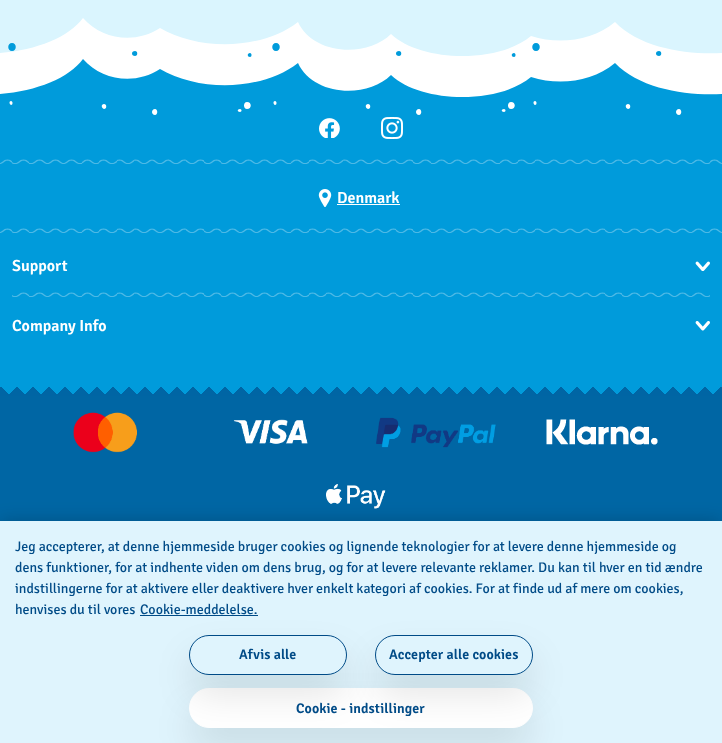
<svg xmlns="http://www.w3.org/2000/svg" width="722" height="743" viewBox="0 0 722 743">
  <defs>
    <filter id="blur1" x="-50%" y="-200%" width="200%" height="500%"><feGaussianBlur stdDeviation="9"/></filter>
    <filter id="blur2" x="-50%" y="-200%" width="200%" height="500%"><feGaussianBlur stdDeviation="18"/></filter>
  </defs>
  <rect width="100%" height="100%" fill="#daf5fe"/>
  <path d="M83 18C102 40 136 44 160 28C199 51 262 50 298 22C313 55 367 58 391 34C422 63 499 63 531 36C559 45 592 41 615 22C640 48 687 55 722 53V75H0V53C37 50 69 37 83 18Z" fill="#ffffff" fill-rule="evenodd"/>
  <rect x="0" y="75" width="722" height="22" fill="#ffffff"/>
  <path d="M12 51C17 51 17 43 12 43C7 43 7 51 12 51ZM135 56C138 56 138 51 135 51C131 51 131 56 135 56ZM250 57C252 57 252 53 250 53C247 53 247 57 250 57Z" fill="#009bdb" fill-rule="evenodd"/>
  <path d="M276 51C281 51 281 43 276 43C271 43 271 51 276 51ZM399 56C402 56 402 51 399 51C395 51 395 56 399 56ZM514 57C516 57 516 53 514 53C511 53 511 57 514 57Z" fill="#009bdb" fill-rule="evenodd"/>
  <path d="M536 51C541 51 541 43 536 43C531 43 531 51 536 51ZM659 56C662 56 662 51 659 51C655 51 655 56 659 56ZM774 57C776 57 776 53 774 53C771 53 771 57 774 57Z" fill="#009bdb" fill-rule="evenodd"/>
  <path d="M83 59C102 81 136 85 160 69C199 92 262 91 298 63C313 96 367 99 391 75C422 104 499 104 531 77C559 86 592 82 615 63C640 89 687 96 722 94V116H0V94C37 91 69 78 83 59Z" fill="#009bdb" fill-rule="evenodd"/>
  <path d="M11 105C13 105 13 101 11 101C9 101 9 104 11 105ZM155 115C158 115 158 109 155 109C151 109 151 115 155 115ZM104 109C107 109 107 104 104 104C101 104 101 108 104 109ZM247 109C252 109 252 102 247 102C243 102 243 109 247 109ZM240 112C242 112 242 109 240 109C237 109 237 112 240 112Z" fill="#ffffff" fill-rule="evenodd"/>
  <path d="M275 105C277 105 277 101 275 101C273 101 273 104 275 105ZM419 115C422 115 422 109 419 109C415 109 415 115 419 115ZM368 109C371 109 371 104 368 104C365 104 365 108 368 109ZM511 109C516 109 516 102 511 102C507 102 507 109 511 109ZM504 112C506 112 506 109 504 109C501 109 501 112 504 112Z" fill="#ffffff" fill-rule="evenodd"/>
  <path d="M535 105C537 105 537 101 535 101C533 101 533 104 535 105ZM679 115C682 115 682 109 679 109C675 109 675 115 679 115ZM628 109C631 109 631 104 628 104C625 104 625 108 628 109ZM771 109C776 109 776 102 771 102C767 102 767 109 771 109ZM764 112C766 112 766 109 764 109C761 109 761 112 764 112Z" fill="#ffffff" fill-rule="evenodd"/>
  <rect x="0" y="116" width="722" height="278" fill="#009bdb"/>
  <image x="319" y="118" width="21" height="20" href="img1.png"/>
  <image x="381" y="117" width="22" height="22" href="img2.png"/>
  <image x="0" y="159" width="722" height="5" href="img3.png"/>
  <image x="318" y="189" width="14" height="18" href="img4.png"/>
  <text x="337" y="203" font-family="Signika" font-size="16" font-weight="600" fill="#ffffff">Denmark</text>
  <rect x="337" y="204" width="63" height="1" fill="#ffffff"/>
  <image x="0" y="228" width="722" height="5" href="img3.png"/>
  <text x="12" y="271" font-family="Signika" font-size="16" font-weight="600" fill="#ffffff">Support</text>
  <image x="695" y="261" width="15" height="10" href="img5.png"/>
  <image x="12" y="292" width="698" height="5" href="img6.png"/>
  <text x="12" y="331" font-family="Signika" font-size="16" font-weight="600" fill="#ffffff">Company Info</text>
  <image x="695" y="321" width="15" height="10" href="img7.png"/>
  <rect x="0" y="396" width="722" height="125" fill="#0066a4"/>
  <image x="0" y="387" width="721" height="9" href="img8.png"/>
  <image x="1" y="387" width="721" height="9" href="img9.png"/>
  <image x="73" y="412" width="64" height="41" href="img10.png"/>
  <image x="233" y="419" width="75" height="25" href="img11.png"/>
  <image x="376" y="417" width="120" height="31" href="img12.png"/>
  <image x="546" y="419" width="112" height="26" href="img13.png"/>
  <image x="326" y="484" width="60" height="25" href="img14.png"/>
  <rect x="0" y="521" width="722" height="222" fill="#000000" fill-opacity="0.2" filter="url(#blur1)"/>
  <rect x="0" y="521" width="722" height="222" fill="#dff4fd"/>
  <text x="15" y="551" font-family="Signika" font-size="14" fill="#004b87">Jeg accepterer, at denne hjemmeside bruger cookies og lignende teknologier for at levere denne hjemmeside og</text>
  <text x="15" y="572" font-family="Signika" font-size="14" fill="#004b87">dens funktioner, for at indhente viden om dens brug, og for at levere relevante reklamer. Du kan til hver en tid ændre</text>
  <text x="15" y="593" font-family="Signika" font-size="14" fill="#004b87">indstillingerne for at aktivere eller deaktivere hver enkelt kategori af cookies. For at finde ud af mere om cookies,</text>
  <rect x="189" y="708" width="344" height="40" rx="20" fill="#000000" fill-opacity="0.1" filter="url(#blur2)"/>
  <rect x="189.5" y="688.5" width="343" height="39" rx="19.5" fill="#ffffff" stroke="#ffffff"/>
  <rect x="189" y="655" width="158" height="40" rx="20" fill="#000000" fill-opacity="0.1" filter="url(#blur2)"/>
  <text x="15" y="614" font-family="Signika" font-size="14" fill="#004b87">henvises du til vores</text>
  <text x="140" y="614" font-family="Signika" font-size="14" fill="#004b87">Cookie-meddelelse.</text>
  <rect x="140" y="615" width="118" height="1" fill="#004b87"/>
  <rect x="189.5" y="635.5" width="157" height="39" rx="19.5" fill="#dff4fd" stroke="#004b87"/>
  <text x="239" y="659" font-family="Signika" font-size="14" font-weight="600" letter-spacing="0.1" fill="#004b87">Afvis alle</text>
  <rect x="375" y="655" width="158" height="40" rx="20" fill="#000000" fill-opacity="0.1" filter="url(#blur2)"/>
  <rect x="375.5" y="635.5" width="157" height="39" rx="19.5" fill="#dff4fd" stroke="#004b87"/>
  <text x="389" y="659" font-family="Signika" font-size="14" font-weight="600" letter-spacing="0.1" fill="#004b87">Accepter alle cookies</text>
  <text x="296" y="713" font-family="Signika" font-size="14" font-weight="600" letter-spacing="0.1" fill="#004b87">Cookie - indstillinger</text>
</svg>
